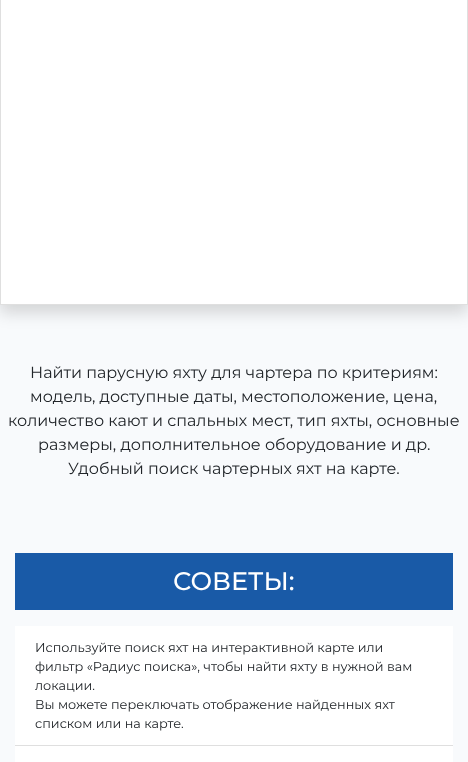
<svg xmlns="http://www.w3.org/2000/svg" width="468" height="762" viewBox="0 0 468 762">
  <defs>
    <filter id="blur1" x="-50%" y="-200%" width="200%" height="500%"><feGaussianBlur stdDeviation="8"/></filter>
  </defs>
  <rect width="100%" height="100%" fill="#f8fafc"/>
  <rect x="0" y="-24" width="468" height="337" fill="#000000" fill-opacity="0.15" filter="url(#blur1)"/>
  <rect x="0.5" y="-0.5" width="467" height="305" fill="#ffffff" stroke="#dfdfdf"/>
  <text x="30" y="378" font-family="Montserrat" font-size="16" fill="#212529">Найти парусную яхту для чартера по критериям:</text>
  <text x="30" y="402" font-family="Montserrat" font-size="16" fill="#212529">модель, доступные даты, местоположение, цена,</text>
  <text x="8" y="426" font-family="Montserrat" font-size="16" fill="#212529">количество кают и спальных мест, тип яхты, основные</text>
  <text x="38" y="450" font-family="Montserrat" font-size="16" fill="#212529">размеры, дополнительное оборудование и др.</text>
  <text x="68" y="474" font-family="Montserrat" font-size="16" fill="#212529">Удобный поиск чартерных яхт на карте.</text>
  <rect x="15" y="553" width="438" height="57" fill="#195aa7"/>
  <text x="173" y="590" font-family="Montserrat" font-size="25.5" font-weight="500" fill="#ffffff">СОВЕТЫ:</text>
  <rect x="15" y="626" width="438" height="119" fill="#ffffff"/>
  <rect x="15" y="745" width="438" height="1" fill="#dfdfdf"/>
  <text x="35" y="652" font-family="Montserrat" font-size="12.8" fill="#212529">Используйте поиск яхт на интерактивной карте или</text>
  <text x="35" y="671" font-family="Montserrat" font-size="12.8" fill="#212529">фильтр «Радиус поиска», чтобы найти яхту в нужной вам</text>
  <text x="35" y="690" font-family="Montserrat" font-size="12.8" fill="#212529">локации.</text>
  <text x="35" y="709" font-family="Montserrat" font-size="12.8" fill="#212529">Вы можете переключать отображение найденных яхт</text>
  <text x="35" y="728" font-family="Montserrat" font-size="12.8" fill="#212529">списком или на карте.</text>
  <rect x="15" y="746" width="438" height="16" fill="#ffffff"/>
</svg>
